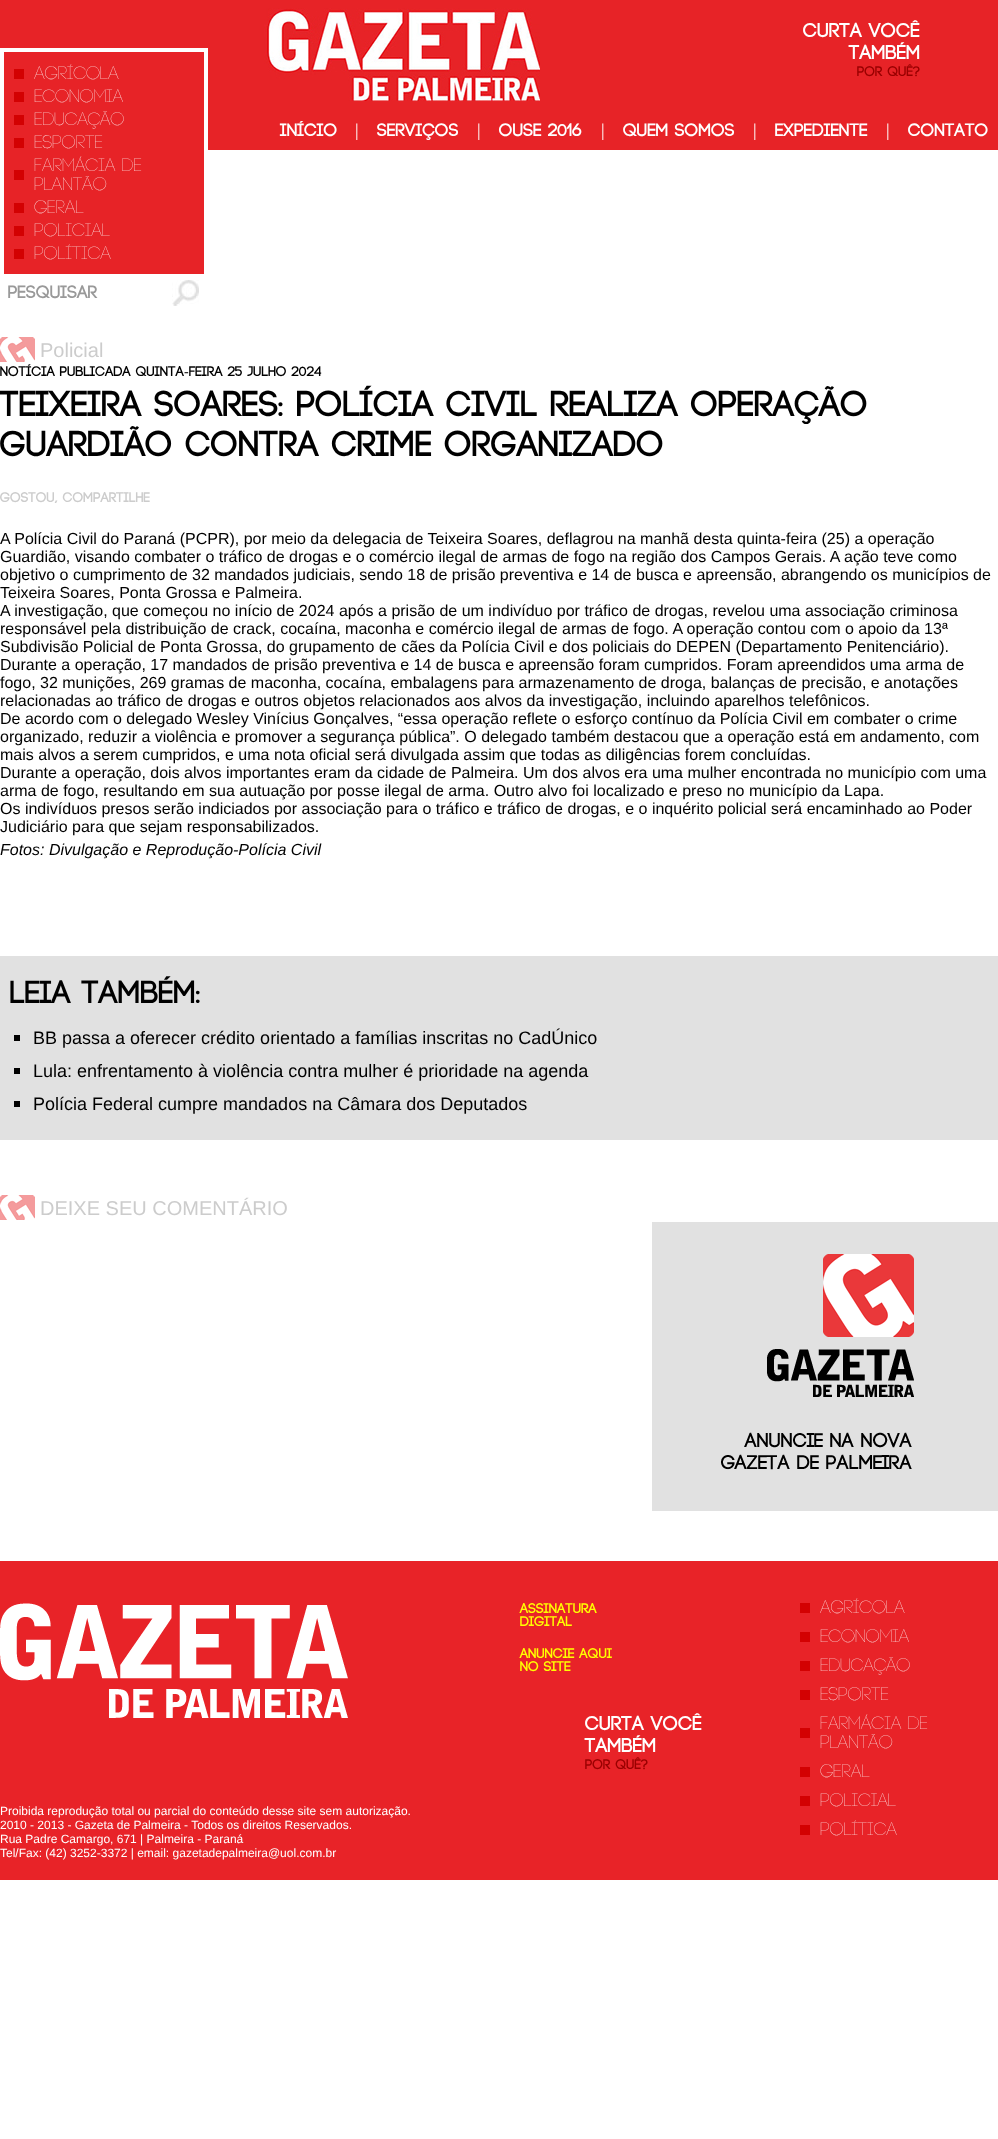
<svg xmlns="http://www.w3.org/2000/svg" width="998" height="2139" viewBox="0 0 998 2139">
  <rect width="100%" height="100%" fill="#ffffff"/>
  <rect x="0" y="0" width="998" height="150" fill="#e72327"/>
  <image x="264" y="8" width="276" height="93" href="img1.png"/>
  <text x="803" y="37" font-family="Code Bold" font-size="20" font-weight="bold" fill="#ffffff">Curta você</text>
  <text x="849" y="59" font-family="Code Bold" font-size="20" font-weight="bold" fill="#ffffff">também</text>
  <text x="857" y="76" font-family="Code Bold" font-size="14" font-weight="bold" fill="#990000">por quê?</text>
  <rect x="4" y="150" width="200" height="124" fill="#e72327"/>
  <rect x="2" y="50" width="204" height="227" fill="none" stroke="#ffffff" stroke-width="4"/>
  <rect x="14" y="69" width="10" height="10" fill="#d30102"/>
  <text x="34" y="79" font-family="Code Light" font-size="18" font-weight="300" fill="#ffffff">Agrícola</text>
  <rect x="14" y="92" width="10" height="10" fill="#d30102"/>
  <text x="34" y="102" font-family="Code Light" font-size="18" font-weight="300" fill="#ffffff">Economia</text>
  <rect x="14" y="115" width="10" height="10" fill="#d30102"/>
  <text x="34" y="125" font-family="Code Light" font-size="18" font-weight="300" fill="#ffffff">Educação</text>
  <rect x="14" y="138" width="10" height="10" fill="#d30102"/>
  <text x="34" y="148" font-family="Code Light" font-size="18" font-weight="300" fill="#ffffff">Esporte</text>
  <rect x="14" y="170" width="10" height="10" fill="#d30102"/>
  <text x="34" y="171" font-family="Code Light" font-size="18" font-weight="300" fill="#ffffff">Farmácia de</text>
  <text x="34" y="190" font-family="Code Light" font-size="18" font-weight="300" fill="#ffffff">Plantão</text>
  <rect x="14" y="203" width="10" height="10" fill="#d30102"/>
  <text x="34" y="213" font-family="Code Light" font-size="18" font-weight="300" fill="#ffffff">Geral</text>
  <rect x="14" y="226" width="10" height="10" fill="#d30102"/>
  <text x="34" y="236" font-family="Code Light" font-size="18" font-weight="300" fill="#ffffff">Policial</text>
  <rect x="14" y="249" width="10" height="10" fill="#d30102"/>
  <text x="34" y="259" font-family="Code Light" font-size="18" font-weight="300" fill="#ffffff">Política</text>
  <image x="172" y="280" width="27" height="26" href="img2.png"/>
  <text x="8" y="298" font-family="Code Bold" font-size="18" font-weight="bold" fill="#999999">pesquisar</text>
  <text x="280" y="136" font-family="Code Bold" font-size="18" font-weight="bold" fill="#ffffff">Início</text>
  <text x="355" y="136" font-family="Liberation Serif" font-size="18" fill="#ffffff">|</text>
  <text x="377" y="136" font-family="Code Bold" font-size="18" font-weight="bold" fill="#ffffff">Serviços</text>
  <text x="477" y="136" font-family="Liberation Serif" font-size="18" fill="#ffffff">|</text>
  <text x="499" y="136" font-family="Code Bold" font-size="18" font-weight="bold" fill="#ffffff">Ouse 2016</text>
  <text x="601" y="136" font-family="Liberation Serif" font-size="18" fill="#ffffff">|</text>
  <text x="623" y="136" font-family="Code Bold" font-size="18" font-weight="bold" fill="#ffffff">Quem somos</text>
  <text x="753" y="136" font-family="Liberation Serif" font-size="18" fill="#ffffff">|</text>
  <text x="775" y="136" font-family="Code Bold" font-size="18" font-weight="bold" fill="#ffffff">Expediente</text>
  <text x="886" y="136" font-family="Liberation Serif" font-size="18" fill="#ffffff">|</text>
  <text x="908" y="136" font-family="Code Bold" font-size="18" font-weight="bold" fill="#ffffff">Contato</text>
  <image x="0" y="337" width="35" height="25" href="img3.png"/>
  <text x="40" y="357" font-family="Liberation Sans" font-size="20" fill="#cccccc">Policial</text>
  <text x="0" y="376" font-family="Code Bold" font-size="14" font-weight="bold" fill="#000000">Notícia publicada quinta</text>
  <text x="184" y="376" font-family="Liberation Serif" font-size="14" fill="#000000">-</text>
  <text x="189" y="376" font-family="Code Bold" font-size="14" font-weight="bold" fill="#000000">feira 25 julho 2024</text>
  <text x="0" y="416" font-family="Code Bold" font-size="36" font-weight="bold" fill="#000000">Teixeira Soares: Polícia Civil Realiza Operação</text>
  <text x="0" y="456" font-family="Code Bold" font-size="36" font-weight="bold" fill="#000000">Guardião Contra Crime Organizado</text>
  <text x="0" y="502" font-family="Code Bold" font-size="14" font-weight="bold" fill="#cccccc">Gostou, compartilhe</text>
  <text x="0" y="544" font-family="Liberation Sans" font-size="16" fill="#000000">A Polícia Civil do Paraná (PCPR), por meio da delegacia de Teixeira Soares, deflagrou na manhã desta quinta-feira (25) a operação</text>
  <text x="0" y="562" font-family="Liberation Sans" font-size="16" fill="#000000">Guardião, visando combater o tráfico de drogas e o comércio ilegal de armas de fogo na região dos Campos Gerais. A ação teve como</text>
  <text x="0" y="580" font-family="Liberation Sans" font-size="16" fill="#000000">objetivo o cumprimento de 32 mandados judiciais, sendo 18 de prisão preventiva e 14 de busca e apreensão, abrangendo os municípios de</text>
  <text x="0" y="598" font-family="Liberation Sans" font-size="16" fill="#000000">Teixeira Soares, Ponta Grossa e Palmeira.</text>
  <text x="0" y="616" font-family="Liberation Sans" font-size="16" fill="#000000">A investigação, que começou no início de 2024 após a prisão de um indivíduo por tráfico de drogas, revelou uma associação criminosa</text>
  <text x="0" y="634" font-family="Liberation Sans" font-size="16" fill="#000000">responsável pela distribuição de crack, cocaína, maconha e comércio ilegal de armas de fogo. A operação contou com o apoio da 13ª</text>
  <text x="0" y="652" font-family="Liberation Sans" font-size="16" fill="#000000">Subdivisão Policial de Ponta Grossa, do grupamento de cães da Polícia Civil e dos policiais do DEPEN (Departamento Penitenciário).</text>
  <text x="0" y="670" font-family="Liberation Sans" font-size="16" fill="#000000">Durante a operação, 17 mandados de prisão preventiva e 14 de busca e apreensão foram cumpridos. Foram apreendidos uma arma de</text>
  <text x="0" y="688" font-family="Liberation Sans" font-size="16" fill="#000000">fogo, 32 munições, 269 gramas de maconha, cocaína, embalagens para armazenamento de droga, balanças de precisão, e anotações</text>
  <text x="0" y="706" font-family="Liberation Sans" font-size="16" fill="#000000">relacionadas ao tráfico de drogas e outros objetos relacionados aos alvos da investigação, incluindo aparelhos telefônicos.</text>
  <text x="0" y="724" font-family="Liberation Sans" font-size="16" fill="#000000">De acordo com o delegado Wesley Vinícius Gonçalves, “essa operação reflete o esforço contínuo da Polícia Civil em combater o crime</text>
  <text x="0" y="742" font-family="Liberation Sans" font-size="16" fill="#000000">organizado, reduzir a violência e promover a segurança pública”. O delegado também destacou que a operação está em andamento, com</text>
  <text x="0" y="760" font-family="Liberation Sans" font-size="16" fill="#000000">mais alvos a serem cumpridos, e uma nota oficial será divulgada assim que todas as diligências forem concluídas.</text>
  <text x="0" y="778" font-family="Liberation Sans" font-size="16" fill="#000000">Durante a operação, dois alvos importantes eram da cidade de Palmeira. Um dos alvos era uma mulher encontrada no município com uma</text>
  <text x="0" y="796" font-family="Liberation Sans" font-size="16" fill="#000000">arma de fogo, resultando em sua autuação por posse ilegal de arma. Outro alvo foi localizado e preso no município da Lapa.</text>
  <text x="0" y="814" font-family="Liberation Sans" font-size="16" fill="#000000">Os indivíduos presos serão indiciados por associação para o tráfico e tráfico de drogas, e o inquérito policial será encaminhado ao Poder</text>
  <text x="0" y="832" font-family="Liberation Sans" font-size="16" fill="#000000">Judiciário para que sejam responsabilizados.</text>
  <text x="0" y="855" font-family="Liberation Sans" font-size="16" font-style="italic" fill="#000000">Fotos: Divulgação e Reprodução-Polícia Civil</text>
  <rect x="0" y="956" width="998" height="184" fill="#e1e1e1"/>
  <text x="10" y="1003" font-family="Code Bold" font-size="32" font-weight="bold" fill="#000000">Leia também:</text>
  <rect x="14" y="1035" width="6" height="6" fill="#000000"/>
  <text x="33" y="1044" font-family="Liberation Sans" font-size="18" fill="#000000">BB passa a oferecer crédito orientado a famílias inscritas no CadÚnico</text>
  <rect x="14" y="1068" width="6" height="6" fill="#000000"/>
  <text x="33" y="1077" font-family="Liberation Sans" font-size="18" fill="#000000">Lula: enfrentamento à violência contra mulher é prioridade na agenda</text>
  <rect x="14" y="1101" width="6" height="6" fill="#000000"/>
  <text x="33" y="1110" font-family="Liberation Sans" font-size="18" fill="#000000">Polícia Federal cumpre mandados na Câmara dos Deputados</text>
  <image x="0" y="1195" width="35" height="25" href="img3.png"/>
  <text x="40" y="1215" font-family="Liberation Sans" font-size="20" fill="#cccccc">DEIXE SEU COMENTÁRIO</text>
  <image x="652" y="1222" width="346" height="289" href="img4.png"/>
  <rect x="0" y="1561" width="998" height="319" fill="#e82328"/>
  <text x="520" y="1613" font-family="Code Bold" font-size="14" font-weight="bold" fill="#ffff00">Assinatura</text>
  <text x="520" y="1626" font-family="Code Bold" font-size="14" font-weight="bold" fill="#ffff00">digital</text>
  <text x="520" y="1658" font-family="Code Bold" font-size="14" font-weight="bold" fill="#ffff00">Anuncie aqui</text>
  <text x="520" y="1671" font-family="Code Bold" font-size="14" font-weight="bold" fill="#ffff00">no site</text>
  <text x="585" y="1730" font-family="Code Bold" font-size="20" font-weight="bold" fill="#ffffff">Curta você</text>
  <text x="585" y="1752" font-family="Code Bold" font-size="20" font-weight="bold" fill="#ffffff">também</text>
  <text x="585" y="1769" font-family="Code Bold" font-size="14" font-weight="bold" fill="#990000">por quê?</text>
  <rect x="800" y="1603" width="10" height="10" fill="#d30102"/>
  <text x="820" y="1613" font-family="Code Light" font-size="18" font-weight="300" fill="#ffffff">Agrícola</text>
  <rect x="800" y="1632" width="10" height="10" fill="#d30102"/>
  <text x="820" y="1642" font-family="Code Light" font-size="18" font-weight="300" fill="#ffffff">Economia</text>
  <rect x="800" y="1661" width="10" height="10" fill="#d30102"/>
  <text x="820" y="1671" font-family="Code Light" font-size="18" font-weight="300" fill="#ffffff">Educação</text>
  <rect x="800" y="1690" width="10" height="10" fill="#d30102"/>
  <text x="820" y="1700" font-family="Code Light" font-size="18" font-weight="300" fill="#ffffff">Esporte</text>
  <rect x="800" y="1728" width="10" height="10" fill="#d30102"/>
  <text x="820" y="1729" font-family="Code Light" font-size="18" font-weight="300" fill="#ffffff">Farmácia de</text>
  <text x="820" y="1748" font-family="Code Light" font-size="18" font-weight="300" fill="#ffffff">Plantão</text>
  <rect x="800" y="1767" width="10" height="10" fill="#d30102"/>
  <text x="820" y="1777" font-family="Code Light" font-size="18" font-weight="300" fill="#ffffff">Geral</text>
  <rect x="800" y="1796" width="10" height="10" fill="#d30102"/>
  <text x="820" y="1806" font-family="Code Light" font-size="18" font-weight="300" fill="#ffffff">Policial</text>
  <rect x="800" y="1825" width="10" height="10" fill="#d30102"/>
  <text x="820" y="1835" font-family="Code Light" font-size="18" font-weight="300" fill="#ffffff">Política</text>
  <image x="0" y="1603" width="348" height="115" href="img5.png"/>
  <text x="0" y="1815" font-family="Liberation Sans" font-size="12" fill="#ffffff">Proibida reprodução total ou parcial do conteúdo desse site sem autorização.</text>
  <text x="0" y="1829" font-family="Liberation Sans" font-size="12" fill="#ffffff">2010 - 2013 - Gazeta de Palmeira - Todos os direitos Reservados.</text>
  <text x="0" y="1843" font-family="Liberation Sans" font-size="12" fill="#ffffff">Rua Padre Camargo, 671 | Palmeira - Paraná</text>
  <text x="0" y="1857" font-family="Liberation Sans" font-size="12" fill="#ffffff">Tel/Fax: (42) 3252-3372 | email: gazetadepalmeira@uol.com.br</text>
</svg>
